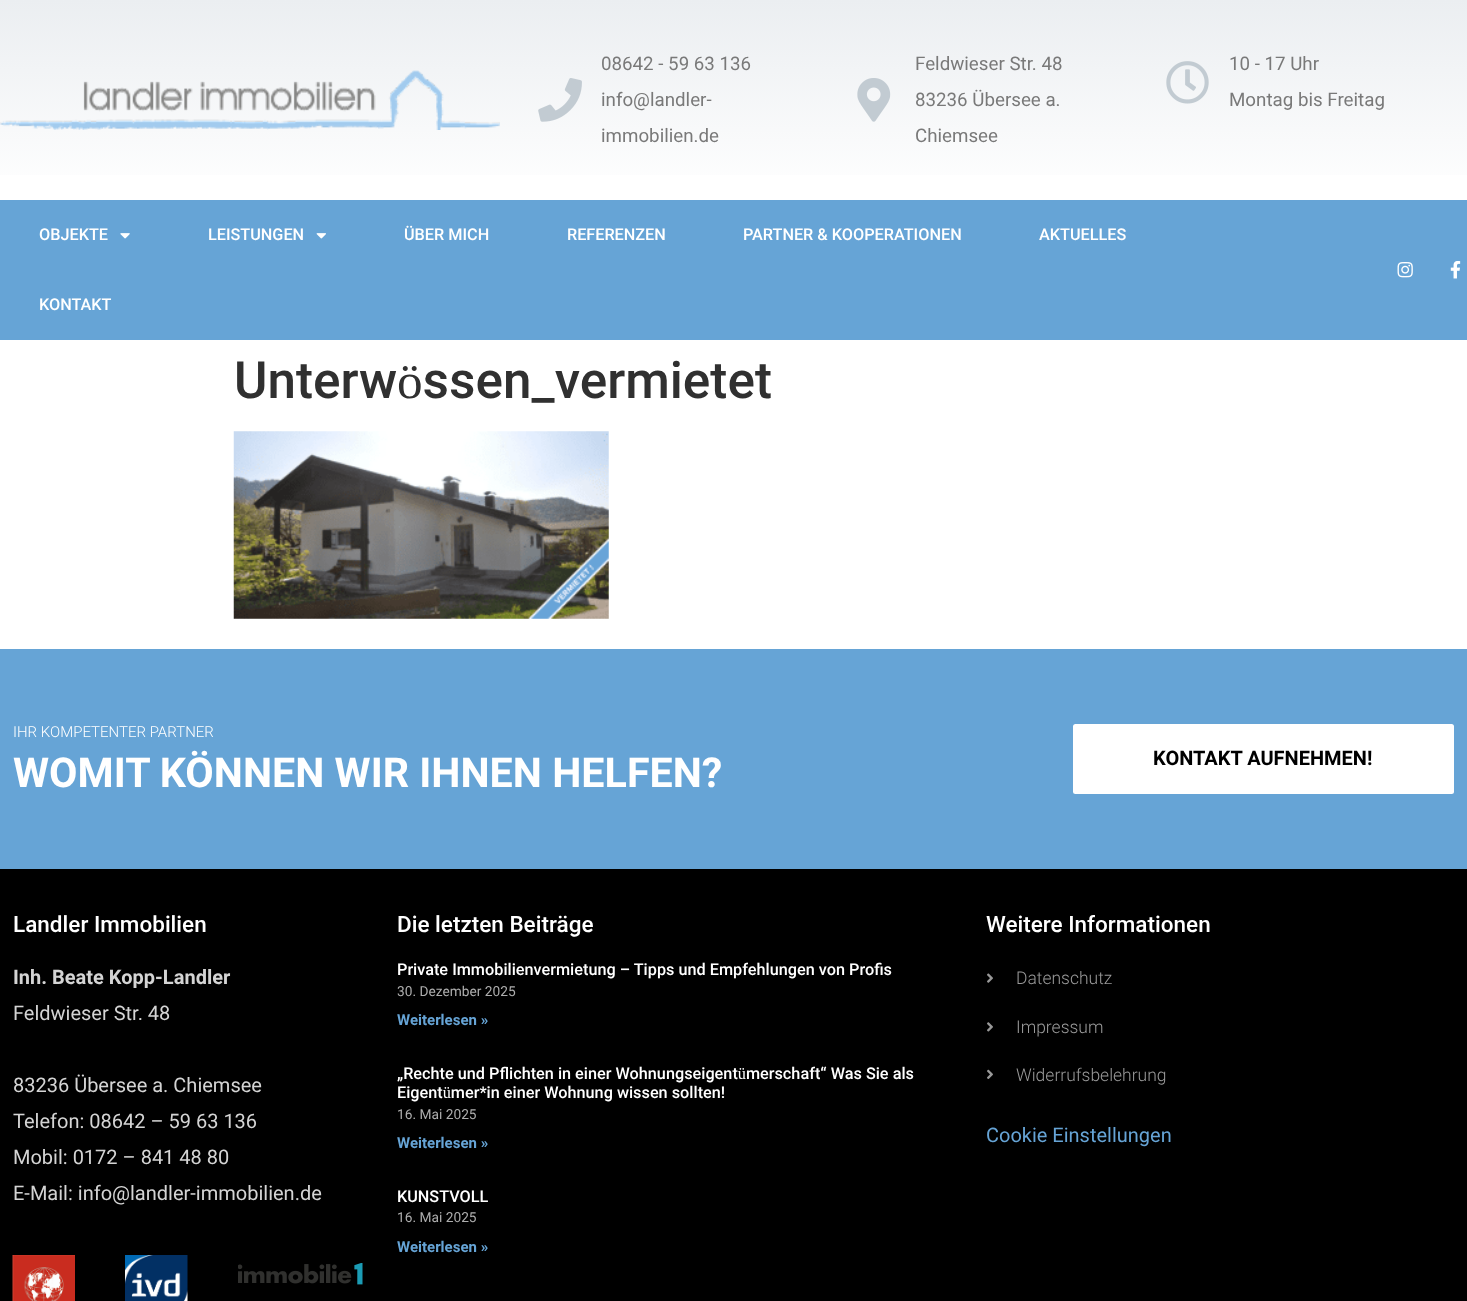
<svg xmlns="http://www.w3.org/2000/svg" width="1467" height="1301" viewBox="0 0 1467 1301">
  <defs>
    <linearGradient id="g1" gradientUnits="userSpaceOnUse" x1="734" y1="0" x2="734" y2="200"><stop offset="0" stop-color="#ebeef1"/><stop offset="1" stop-color="#ffffff"/></linearGradient>
  </defs>
  <rect width="100%" height="100%" fill="#ffffff"/>
  <rect x="0" y="0" width="1467" height="175" fill="url(#g1)"/>
  <image x="0" y="70" width="500" height="60" href="img1.png"/>
  <image x="538" y="78" width="44" height="44" href="img2.png"/>
  <text x="601" y="70" font-family="Roboto" font-size="18.75" fill="#797979">08642 - 59 63 136</text>
  <text x="601" y="106" font-family="Roboto" font-size="18.75" fill="#797979">info@landler-</text>
  <text x="601" y="142" font-family="Roboto" font-size="18.75" fill="#797979">immobilien.de</text>
  <image x="857" y="78" width="34" height="44" href="img3.png"/>
  <text x="915" y="70" font-family="Roboto" font-size="18.75" fill="#797979">Feldwieser Str. 48</text>
  <text x="915" y="106" font-family="Roboto" font-size="18.75" fill="#797979">83236 Übersee a.</text>
  <text x="915" y="142" font-family="Roboto" font-size="18.75" fill="#797979">Chiemsee</text>
  <image x="1166" y="61" width="43" height="43" href="img4.png"/>
  <text x="1229" y="70" font-family="Roboto" font-size="18.75" fill="#797979">10 - 17 Uhr</text>
  <text x="1229" y="106" font-family="Roboto" font-size="18.75" fill="#797979">Montag bis Freitag</text>
  <rect x="0" y="200" width="1467" height="140" fill="#66a4d6"/>
  <text x="39" y="240" font-family="Roboto" font-size="16.25" font-weight="500" fill="#ffffff">OBJEKTE</text>
  <image x="120" y="233" width="10" height="6" href="img5.png"/>
  <text x="208" y="240" font-family="Roboto" font-size="16.25" font-weight="500" fill="#ffffff">LEISTUNGEN</text>
  <image x="316" y="233" width="10" height="6" href="img6.png"/>
  <text x="404" y="240" font-family="Roboto" font-size="16.25" font-weight="500" fill="#ffffff">ÜBER MICH</text>
  <text x="567" y="240" font-family="Roboto" font-size="16.25" font-weight="500" fill="#ffffff">REFERENZEN</text>
  <text x="743" y="240" font-family="Roboto" font-size="16.25" font-weight="500" fill="#ffffff">PARTNER &amp; KOOPERATIONEN</text>
  <text x="1039" y="240" font-family="Roboto" font-size="16.25" font-weight="500" fill="#ffffff">AKTUELLES</text>
  <text x="39" y="310" font-family="Roboto" font-size="16.25" font-weight="500" fill="#ffffff">KONTAKT</text>
  <image x="1397" y="262" width="16" height="16" href="img7.png"/>
  <image x="1450" y="261" width="11" height="18" href="img8.png"/>
  <text x="234" y="398" font-family="Roboto" font-size="51.25" font-weight="500" fill="#303030">Unterwössen_vermietet</text>
  <image x="233" y="431" width="376" height="188" href="img9.png"/>
  <rect x="0" y="649" width="1467" height="220" fill="#66a4d6"/>
  <text x="13" y="737" font-family="Roboto" font-size="15" font-weight="300" fill="#ffffff">IHR KOMPETENTER PARTNER</text>
  <text x="13" y="787" font-family="Roboto" font-size="41.25" font-weight="bold" fill="#ffffff">WOMIT KÖNNEN WIR IHNEN HELFEN?</text>
  <rect x="1073" y="724" width="381" height="70" rx="2.5" fill="#ffffff"/>
  <text x="1153" y="765" font-family="Roboto" font-size="20" font-weight="bold" fill="#000000">KONTAKT AUFNEHMEN!</text>
  <rect x="0" y="869" width="1467" height="432" fill="#000000"/>
  <text x="13" y="932" font-family="Roboto" font-size="22.5" font-weight="500" fill="#ffffff">Landler Immobilien</text>
  <text x="13" y="984" font-family="Roboto" font-size="20" font-weight="bold" fill="#d4d4d4">Inh. Beate Kopp-Landler</text>
  <text x="13" y="1020" font-family="Roboto" font-size="20" fill="#d4d4d4">Feldwieser Str. 48</text>
  <text x="13" y="1092" font-family="'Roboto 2'" font-size="20" fill="#d4d4d4">83236 Übersee a. Chiemsee</text>
  <text x="13" y="1128" font-family="'Roboto 2'" font-size="20" fill="#d4d4d4">Telefon: 08642 – 59 63 136</text>
  <text x="13" y="1164" font-family="'Roboto 2'" font-size="20" fill="#d4d4d4">Mobil: 0172 – 841 48 80</text>
  <text x="13" y="1200" font-family="'Roboto 2'" font-size="20" fill="#d4d4d4">E-Mail: info@landler-immobilien.de</text>
  <image x="12" y="1255" width="63" height="46" href="img10.png"/>
  <image x="125" y="1255" width="63" height="46" href="img11.png"/>
  <image x="238" y="1263" width="125" height="22" href="img12.png"/>
  <text x="397" y="932" font-family="Roboto" font-size="22.5" font-weight="500" fill="#ffffff">Die letzten Beiträge</text>
  <text x="397" y="975" font-family="Roboto" font-size="16.25" font-weight="500" fill="#ffffff">Private Immobilienvermietung – Tipps und Empfehlungen von Profis</text>
  <text x="397" y="996" font-family="Roboto" font-size="13.75" fill="#adadad">30. Dezember 2025</text>
  <text x="397" y="1025" font-family="Roboto" font-size="15" font-weight="bold" fill="#66a4d6">Weiterlesen »</text>
  <text x="397" y="1079" font-family="Roboto" font-size="16.25" font-weight="500" fill="#ffffff">„Rechte und Pflichten in einer Wohnungseigentümerschaft“ Was Sie als</text>
  <text x="397" y="1098" font-family="Roboto" font-size="16.25" font-weight="500" fill="#ffffff">Eigentümer*in einer Wohnung wissen sollten!</text>
  <text x="397" y="1119" font-family="Roboto" font-size="13.75" fill="#adadad">16. Mai 2025</text>
  <text x="397" y="1148" font-family="Roboto" font-size="15" font-weight="bold" fill="#66a4d6">Weiterlesen »</text>
  <text x="397" y="1202" font-family="Roboto" font-size="16.25" font-weight="500" fill="#ffffff">KUNSTVOLL</text>
  <text x="397" y="1222" font-family="Roboto" font-size="13.75" fill="#adadad">16. Mai 2025</text>
  <text x="397" y="1252" font-family="Roboto" font-size="15" font-weight="bold" fill="#66a4d6">Weiterlesen »</text>
  <text x="986" y="932" font-family="Roboto" font-size="22.5" font-weight="500" fill="#ffffff">Weitere Informationen</text>
  <image x="987" y="973" width="6" height="10" href="img13.png"/>
  <text x="1016" y="984" font-family="Roboto" font-size="17.5" font-weight="300" fill="#999999">Datenschutz</text>
  <image x="987" y="1022" width="6" height="10" href="img14.png"/>
  <text x="1016" y="1033" font-family="Roboto" font-size="17.5" font-weight="300" fill="#999999">Impressum</text>
  <image x="987" y="1069" width="6" height="10" href="img15.png"/>
  <text x="1016" y="1081" font-family="Roboto" font-size="17.5" font-weight="300" fill="#999999">Widerrufsbelehrung</text>
  <text x="986" y="1142" font-family="Roboto" font-size="20" fill="#66a4d6">Cookie Einstellungen</text>
</svg>
